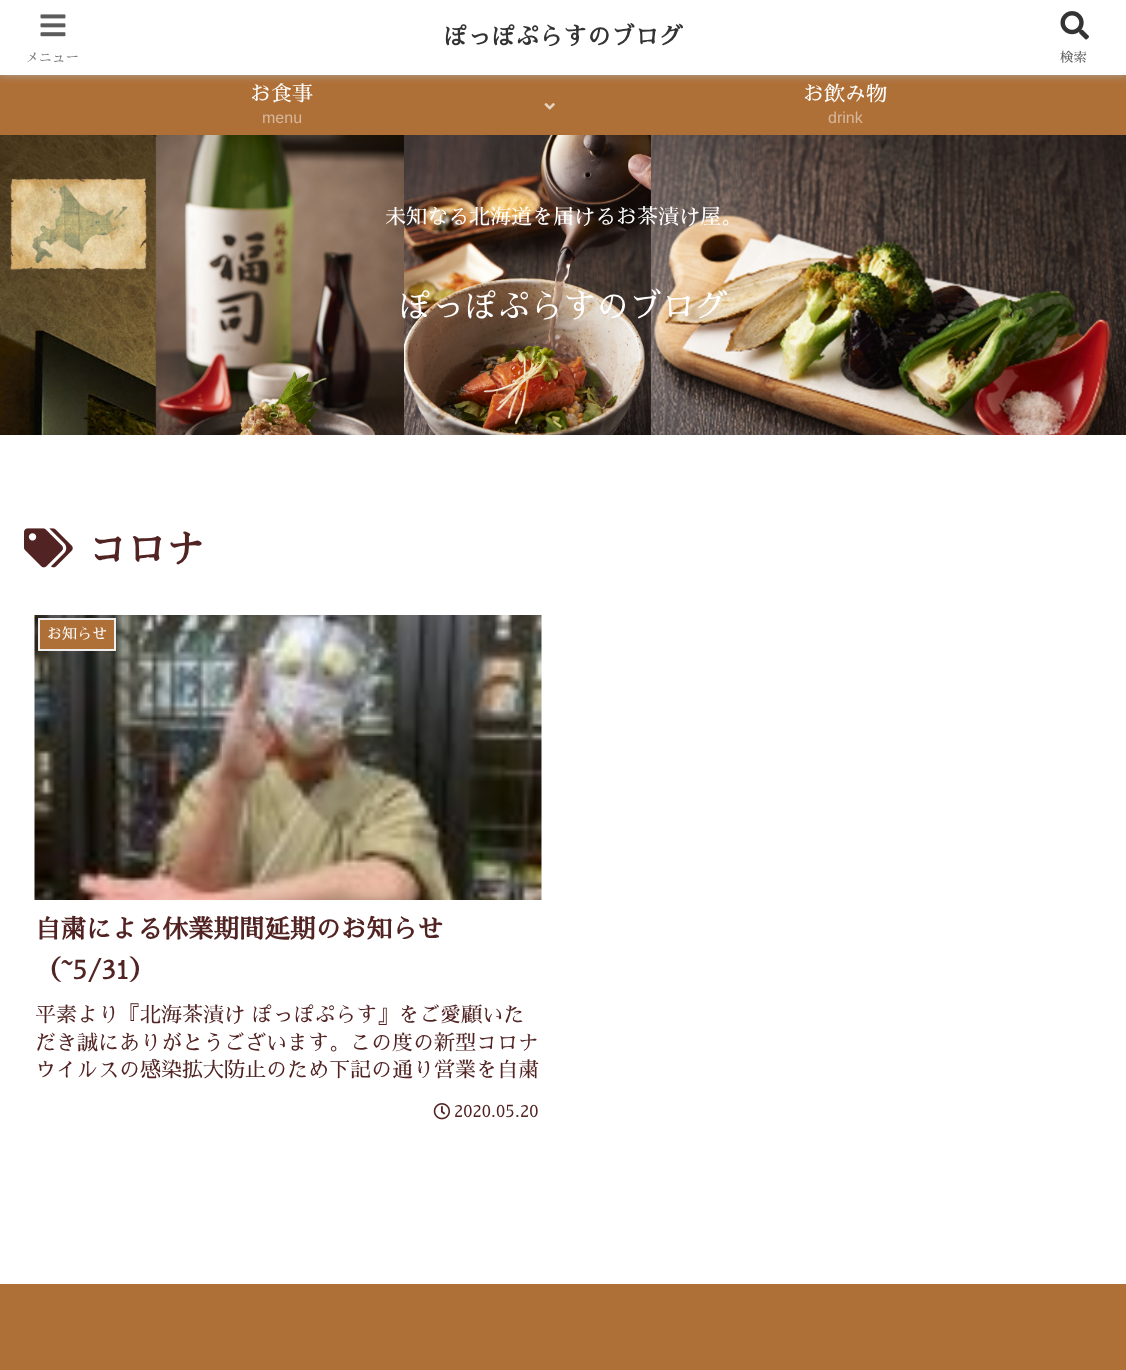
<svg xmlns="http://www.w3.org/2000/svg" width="1126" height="1370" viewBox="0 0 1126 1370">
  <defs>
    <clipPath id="clip1"><rect x="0" y="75" width="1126" height="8"/></clipPath>
    <filter id="blur1" x="-50%" y="-200%" width="200%" height="500%"><feGaussianBlur stdDeviation="4"/></filter>
  </defs>
  <rect width="100%" height="100%" fill="#ffffff"/>
  <rect x="0" y="75" width="1126" height="60" fill="#af7038"/>
  <g clip-path="url(#clip1)">
    <rect x="0" y="0" width="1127" height="75" fill="#a9a9a9" filter="url(#blur1)"/>
  </g>
  <text x="443" y="45" font-family="Sawarabi Mincho" font-size="24" font-weight="bold" fill="#333333">ぽっぽぷらすのブログ</text>
  <image x="40" y="14" width="26" height="23" href="img1.png"/>
  <text x="25" y="62" font-family="Sawarabi Mincho" font-size="13.5" fill="#7c7c7c">メニュー</text>
  <image x="1060" y="11" width="29" height="29" href="img2.png"/>
  <text x="1060" y="62" font-family="Sawarabi Mincho" font-size="13.5" fill="#5c5c5c">検索</text>
  <text x="250" y="101" font-family="Sawarabi Mincho" font-size="21" fill="#ffffff">お食事</text>
  <text x="262" y="123" font-family="Liberation Sans" font-size="16" fill="#d7b89c">menu</text>
  <image x="544" y="103" width="11" height="7" href="img3.png"/>
  <text x="803" y="101" font-family="Sawarabi Mincho" font-size="21" fill="#ffffff">お飲み物</text>
  <text x="828" y="123" font-family="Liberation Sans" font-size="16" fill="#d7b89c">drink</text>
  <image x="0" y="135" width="1126" height="300" href="img4.png"/>
  <text x="385" y="224" font-family="Sawarabi Mincho" font-size="21" fill="#ffffff">未知なる北海道を届けるお茶漬け屋。</text>
  <text x="398" y="318" font-family="Sawarabi Mincho" font-size="33" fill="#ffffff">ぽっぽぷらすのブログ</text>
  <image x="24" y="528" width="49" height="40" href="img5.png"/>
  <text x="88" y="563" font-family="Sawarabi Mincho" font-size="39" font-weight="bold" fill="#512323">コロナ</text>
  <image x="34" y="615" width="508" height="285" href="img6.png"/>
  <rect x="39" y="619" width="76" height="31" fill="#af7038" stroke="#eeeeee" stroke-width="2"/>
  <text x="47" y="639" font-family="Sawarabi Mincho" font-size="15" fill="#ffffff">お知らせ</text>
  <text x="35" y="938" font-family="Sawarabi Mincho" font-size="25.5" font-weight="bold" fill="#512323">自粛による休業期間延期のお知らせ</text>
  <text x="35" y="979" font-family="Sawarabi Mincho" font-size="25.5" font-weight="bold" fill="#512323">（~5/31）</text>
  <text x="35" y="1022" font-family="Sawarabi Mincho" font-size="21" fill="#512323">平素より『北海茶漬け ぽっぽぷらす』をご愛顧いた</text>
  <text x="35" y="1050" font-family="Sawarabi Mincho" font-size="21" fill="#512323">だき誠にありがとうございます。この度の新型コロナ</text>
  <text x="35" y="1077" font-family="Sawarabi Mincho" font-size="21" fill="#512323">ウイルスの感染拡大防止のため下記の通り営業を自粛</text>
  <image x="433" y="1103" width="17" height="17" href="img7.png"/>
  <text x="454" y="1117" font-family="Sawarabi Mincho" font-size="16.75" fill="#512323">2020.05.20</text>
  <rect x="0" y="1284" width="1126" height="86" fill="#af7038"/>
</svg>
